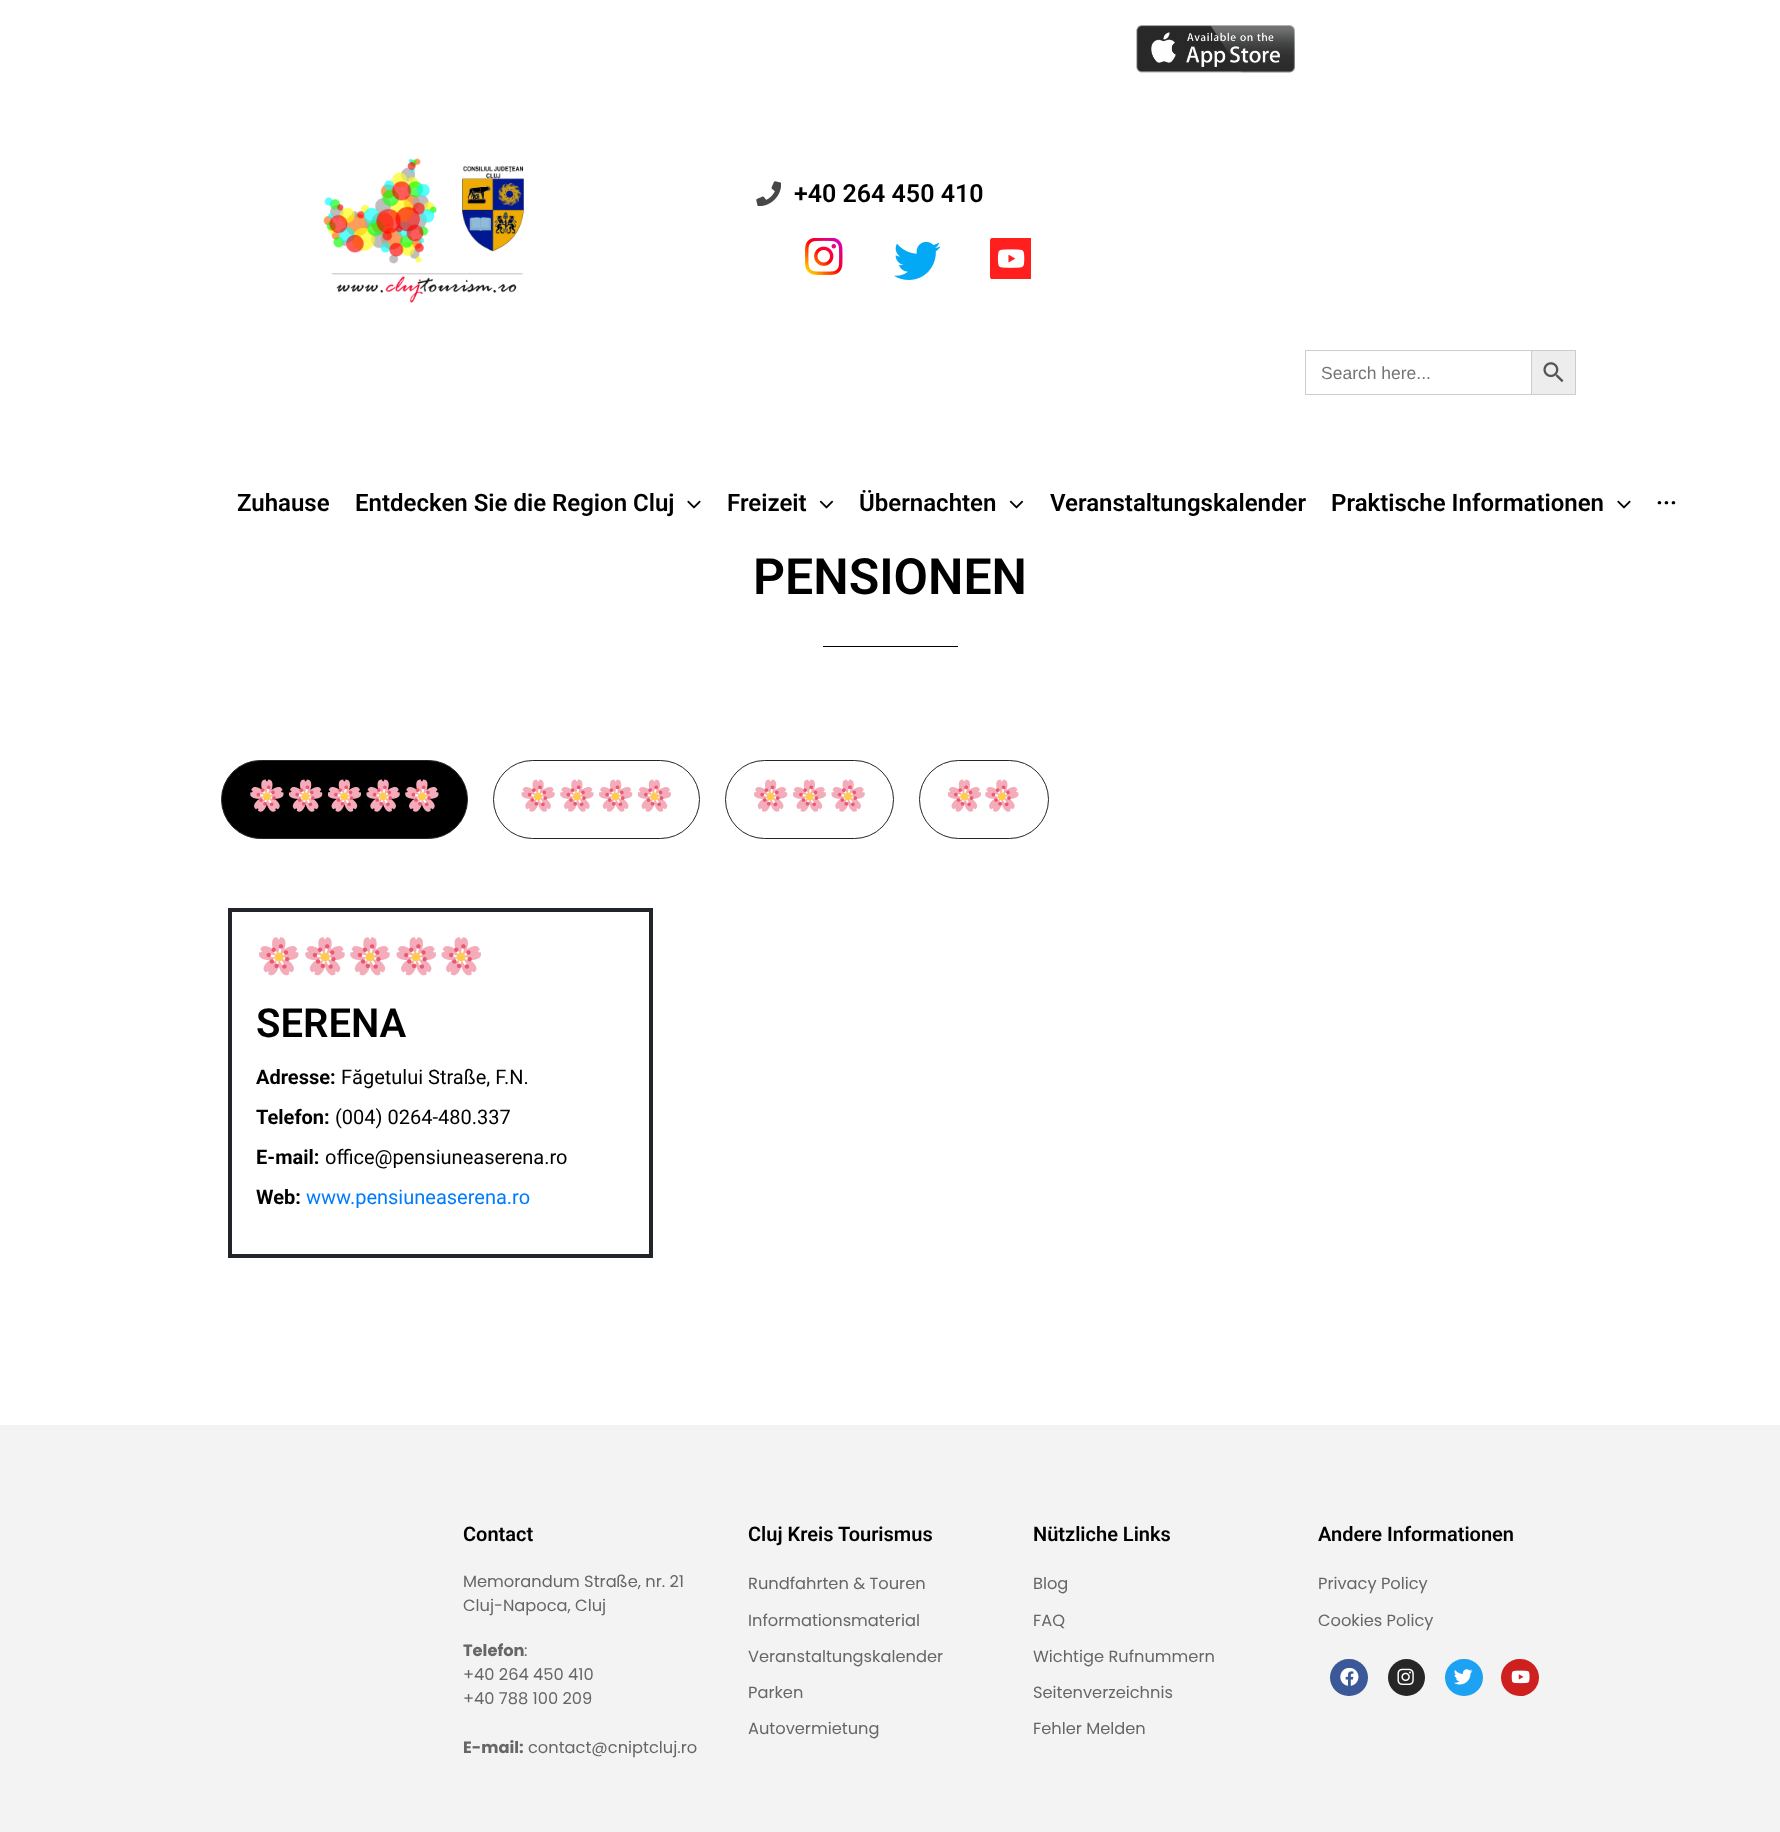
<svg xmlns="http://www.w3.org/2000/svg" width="1780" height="1832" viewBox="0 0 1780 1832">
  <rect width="100%" height="100%" fill="#ffffff"/>
  <image x="323" y="158" width="201" height="145" href="img1.png"/>
  <image x="756" y="181" width="25" height="25" href="img2.png"/>
  <text x="794" y="202" font-family="Roboto" font-size="25" font-weight="600" fill="#000000">+40 264 450 410</text>
  <image x="805" y="238" width="38" height="37" href="img3.png"/>
  <image x="894" y="241" width="46" height="39" href="img4.png"/>
  <image x="990" y="238" width="41" height="41" href="img5.png"/>
  <image x="1136" y="25" width="159" height="48" href="img6.png"/>
  <rect x="1305" y="350" width="226" height="1" fill="#cccccc"/>
  <rect x="1305" y="394" width="226" height="1" fill="#cccccc"/>
  <rect x="1305" y="350" width="1" height="45" fill="#cccccc"/>
  <text x="1321" y="379" font-family="Liberation Sans" font-size="17.5" fill="#757575">Search here...</text>
  <rect x="1531.5" y="350.5" width="44" height="44" fill="#ededed" stroke="#cccccc"/>
  <image x="1543" y="362" width="21" height="21" href="img7.png"/>
  <text x="237" y="511" font-family="Roboto" font-size="24" font-weight="600" fill="#000000">Zuhause</text>
  <text x="355" y="511" font-family="Roboto" font-size="24" font-weight="600" fill="#000000">Entdecken Sie die Region Cluj</text>
  <image x="687" y="500" width="14" height="9" href="img8.png"/>
  <text x="727" y="511" font-family="Roboto" font-size="24" font-weight="600" fill="#000000">Freizeit</text>
  <image x="819" y="500" width="15" height="9" href="img9.png"/>
  <text x="859" y="511" font-family="Roboto" font-size="24" font-weight="600" fill="#000000">Übernachten</text>
  <image x="1009" y="500" width="15" height="9" href="img9.png"/>
  <text x="1050" y="511" font-family="Roboto" font-size="24" font-weight="600" fill="#000000">Veranstaltungskalender</text>
  <text x="1331" y="511" font-family="Roboto" font-size="24" font-weight="600" fill="#000000">Praktische Informationen</text>
  <image x="1617" y="500" width="14" height="9" href="img8.png"/>
  <text x="1656" y="511" font-family="Roboto" font-size="24" font-weight="600" fill="#000000">···</text>
  <text x="753" y="594" font-family="Roboto" font-size="50" font-weight="600" fill="#000000">PENSIONEN</text>
  <rect x="823" y="646" width="135" height="1" fill="#000000"/>
  <rect x="221.5" y="760.5" width="246" height="78" rx="39" fill="#000000" stroke="#212529"/>
  <image x="250" y="779" width="34" height="33" href="img10.png"/>
  <image x="289" y="779" width="34" height="33" href="img11.png"/>
  <image x="328" y="779" width="33" height="33" href="img12.png"/>
  <image x="366" y="779" width="34" height="33" href="img13.png"/>
  <image x="405" y="779" width="34" height="33" href="img10.png"/>
  <rect x="493.5" y="760.5" width="206" height="78" rx="39" fill="none" stroke="#212529"/>
  <image x="521" y="779" width="34" height="33" href="img14.png"/>
  <image x="560" y="779" width="34" height="33" href="img15.png"/>
  <image x="599" y="779" width="34" height="33" href="img16.png"/>
  <image x="638" y="779" width="33" height="33" href="img17.png"/>
  <rect x="725.5" y="760.5" width="168" height="78" rx="39" fill="none" stroke="#212529"/>
  <image x="754" y="779" width="34" height="33" href="img16.png"/>
  <image x="793" y="779" width="33" height="33" href="img17.png"/>
  <image x="831" y="779" width="34" height="33" href="img14.png"/>
  <rect x="919.5" y="760.5" width="129" height="78" rx="39" fill="none" stroke="#212529"/>
  <image x="948" y="779" width="33" height="33" href="img17.png"/>
  <image x="985" y="779" width="34" height="33" href="img15.png"/>
  <rect x="230" y="910" width="421" height="346" fill="none" stroke="#212529" stroke-width="4"/>
  <image x="259" y="937" width="40" height="39" href="img18.png"/>
  <image x="305" y="937" width="40" height="39" href="img19.png"/>
  <image x="350" y="937" width="40" height="39" href="img19.png"/>
  <image x="396" y="937" width="40" height="39" href="img20.png"/>
  <image x="441" y="937" width="40" height="39" href="img20.png"/>
  <text x="256" y="1037" font-family="Roboto" font-size="40" font-weight="600" fill="#000000">SERENA</text>
  <text x="256" y="1084" font-family="Roboto" font-size="20" font-weight="bold" fill="#000000">Adresse:</text>
  <text x="341" y="1084" font-family="Roboto" font-size="20" fill="#000000">Făgetului Straße, F.N.</text>
  <text x="256" y="1124" font-family="Roboto" font-size="20" font-weight="bold" fill="#000000">Telefon:</text>
  <text x="335" y="1124" font-family="Roboto" font-size="20" fill="#000000">(004) 0264-480.337</text>
  <text x="256" y="1164" font-family="Roboto" font-size="20" font-weight="bold" fill="#000000">E-mail:</text>
  <text x="325" y="1164" font-family="Roboto" font-size="20" fill="#000000">office@pensiuneaserena.ro</text>
  <text x="256" y="1204" font-family="Roboto" font-size="20" font-weight="bold" fill="#000000">Web:</text>
  <text x="306" y="1204" font-family="Roboto" font-size="20" fill="#007bff">www.pensiuneaserena.ro</text>
  <rect x="0" y="1425" width="1780" height="407" fill="#f3f3f3"/>
  <text x="463" y="1541" font-family="Roboto" font-size="20" font-weight="600" fill="#000000">Contact</text>
  <text x="463" y="1587" font-family="Poppins" font-size="16.25" fill="#666666">Memorandum Straße, nr. 21</text>
  <text x="463" y="1611" font-family="Poppins" font-size="16.25" fill="#666666">Cluj-Napoca, Cluj</text>
  <text x="463" y="1656" font-family="Poppins" font-size="16.25" font-weight="bold" fill="#666666">Telefon</text>
  <text x="524" y="1656" font-family="Poppins" font-size="16.25" fill="#666666">:</text>
  <text x="463" y="1680" font-family="Poppins" font-size="16.25" fill="#666666">+40 264 450 410</text>
  <text x="463" y="1704" font-family="Poppins" font-size="16.25" fill="#666666">+40 788 100 209</text>
  <text x="463" y="1753" font-family="Poppins" font-size="16.25" font-weight="bold" fill="#666666">E-mail:</text>
  <text x="528" y="1753" font-family="Poppins" font-size="16.25" fill="#666666">contact@cniptcluj.ro</text>
  <text x="748" y="1541" font-family="Roboto" font-size="20" font-weight="600" fill="#000000">Cluj Kreis Tourismus</text>
  <text x="748" y="1589" font-family="Poppins" font-size="16.25" fill="#666666">Rundfahrten &amp; Touren</text>
  <text x="748" y="1626" font-family="Poppins" font-size="16.25" fill="#666666">Informationsmaterial</text>
  <text x="748" y="1662" font-family="Poppins" font-size="16.25" fill="#666666">Veranstaltungskalender</text>
  <text x="748" y="1698" font-family="Poppins" font-size="16.25" fill="#666666">Parken</text>
  <text x="748" y="1734" font-family="Poppins" font-size="16.25" fill="#666666">Autovermietung</text>
  <text x="1033" y="1541" font-family="Roboto" font-size="20" font-weight="600" fill="#000000">Nützliche Links</text>
  <text x="1033" y="1589" font-family="Poppins" font-size="16.25" fill="#666666">Blog</text>
  <text x="1033" y="1626" font-family="Poppins" font-size="16.25" fill="#666666">FAQ</text>
  <text x="1033" y="1662" font-family="Poppins" font-size="16.25" fill="#666666">Wichtige Rufnummern</text>
  <text x="1033" y="1698" font-family="Poppins" font-size="16.25" fill="#666666">Seitenverzeichnis</text>
  <text x="1033" y="1734" font-family="Poppins" font-size="16.25" fill="#666666">Fehler Melden</text>
  <text x="1318" y="1541" font-family="Roboto" font-size="20" font-weight="600" fill="#000000">Andere Informationen</text>
  <text x="1318" y="1589" font-family="Poppins" font-size="16.25" fill="#666666">Privacy Policy</text>
  <text x="1318" y="1626" font-family="Poppins" font-size="16.25" fill="#666666">Cookies Policy</text>
  <rect x="1330" y="1659" width="38" height="37" rx="18.5" fill="#3b5998"/>
  <image x="1340" y="1668" width="19" height="18" href="img21.png"/>
  <circle cx="1406.5" cy="1677.5" r="18.5" fill="#262626"/>
  <image x="1397" y="1668" width="17" height="17" href="img22.png"/>
  <rect x="1445" y="1659" width="38" height="37" rx="18.5" fill="#1da1f2"/>
  <image x="1454" y="1669" width="19" height="16" href="img23.png"/>
  <rect x="1501" y="1659" width="38" height="37" rx="18.5" fill="#cd201f"/>
  <image x="1511" y="1670" width="19" height="14" href="img24.png"/>
</svg>
